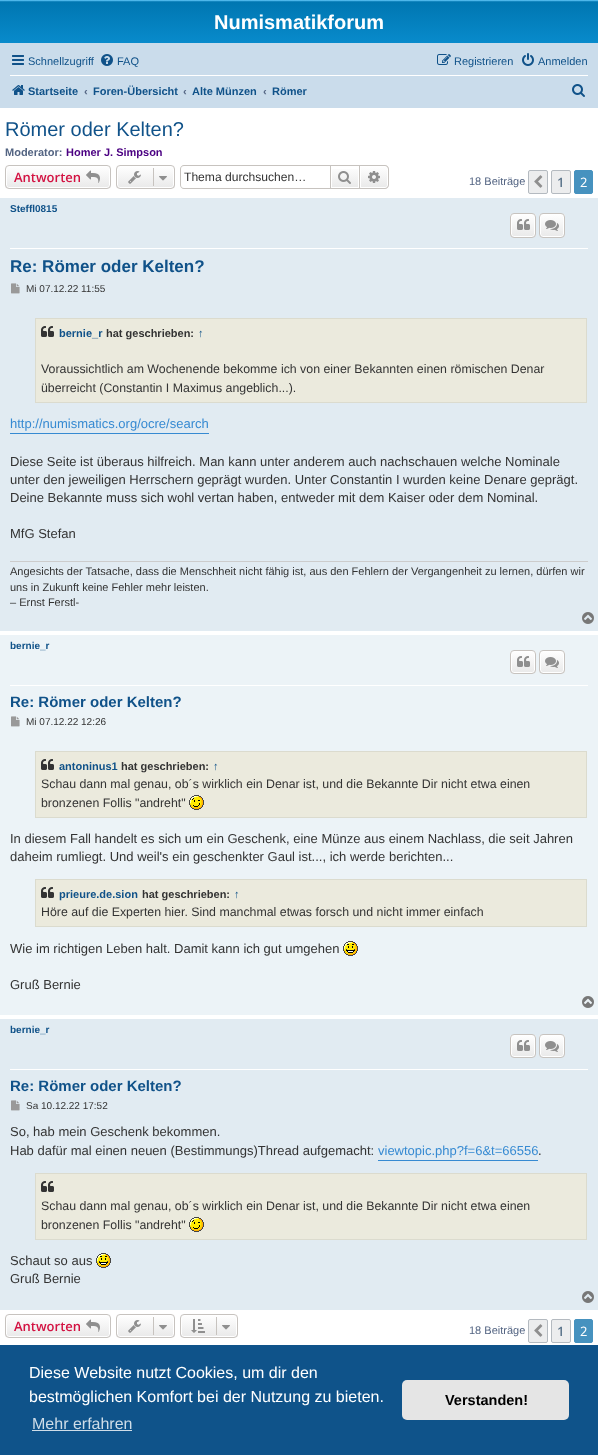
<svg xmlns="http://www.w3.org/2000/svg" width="598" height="1455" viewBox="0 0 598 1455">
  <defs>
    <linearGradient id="g1" gradientUnits="userSpaceOnUse" x1="299" y1="0" x2="299" y2="92"><stop offset="0" stop-color="#6aceff"/><stop offset="0.02" stop-color="#0076b1"/><stop offset="1" stop-color="#12a3eb"/></linearGradient>
    <clipPath id="clip1"><rect x="5" y="165" width="106" height="24" rx="4"/></clipPath>
    <linearGradient id="g2" gradientUnits="userSpaceOnUse" x1="58" y1="166" x2="58" y2="188"><stop offset="0" stop-color="#ffffff"/><stop offset="1" stop-color="#e9e9e9"/></linearGradient>
    <clipPath id="clip2"><rect x="116" y="165" width="59" height="24" rx="4"/></clipPath>
    <linearGradient id="g3" gradientUnits="userSpaceOnUse" x1="146" y1="166" x2="146" y2="188"><stop offset="0" stop-color="#ffffff"/><stop offset="1" stop-color="#e9e9e9"/></linearGradient>
    <linearGradient id="g4" gradientUnits="userSpaceOnUse" x1="345" y1="166" x2="345" y2="188"><stop offset="0" stop-color="#ffffff"/><stop offset="1" stop-color="#e9e9e9"/></linearGradient>
    <linearGradient id="g5" gradientUnits="userSpaceOnUse" x1="374" y1="166" x2="374" y2="188"><stop offset="0" stop-color="#ffffff"/><stop offset="1" stop-color="#e9e9e9"/></linearGradient>
    <clipPath id="clip3"><rect x="510" y="213" width="26" height="25" rx="4"/></clipPath>
    <linearGradient id="g6" gradientUnits="userSpaceOnUse" x1="523" y1="214" x2="523" y2="237"><stop offset="0" stop-color="#ffffff"/><stop offset="1" stop-color="#e9e9e9"/></linearGradient>
    <clipPath id="clip4"><rect x="539" y="213" width="26" height="25" rx="4"/></clipPath>
    <linearGradient id="g7" gradientUnits="userSpaceOnUse" x1="552" y1="214" x2="552" y2="237"><stop offset="0" stop-color="#ffffff"/><stop offset="1" stop-color="#e9e9e9"/></linearGradient>
    <clipPath id="clip5"><rect x="510" y="650" width="26" height="24" rx="4"/></clipPath>
    <linearGradient id="g8" gradientUnits="userSpaceOnUse" x1="523" y1="651" x2="523" y2="673"><stop offset="0" stop-color="#ffffff"/><stop offset="1" stop-color="#e9e9e9"/></linearGradient>
    <clipPath id="clip6"><rect x="539" y="650" width="26" height="24" rx="4"/></clipPath>
    <linearGradient id="g9" gradientUnits="userSpaceOnUse" x1="552" y1="651" x2="552" y2="673"><stop offset="0" stop-color="#ffffff"/><stop offset="1" stop-color="#e9e9e9"/></linearGradient>
    <clipPath id="clip7"><rect x="510" y="1034" width="26" height="24" rx="4"/></clipPath>
    <linearGradient id="g10" gradientUnits="userSpaceOnUse" x1="523" y1="1035" x2="523" y2="1057"><stop offset="0" stop-color="#ffffff"/><stop offset="1" stop-color="#e9e9e9"/></linearGradient>
    <clipPath id="clip8"><rect x="539" y="1034" width="26" height="24" rx="4"/></clipPath>
    <linearGradient id="g11" gradientUnits="userSpaceOnUse" x1="552" y1="1035" x2="552" y2="1057"><stop offset="0" stop-color="#ffffff"/><stop offset="1" stop-color="#e9e9e9"/></linearGradient>
    <clipPath id="clip9"><rect x="5" y="1314" width="106" height="24" rx="4"/></clipPath>
    <linearGradient id="g12" gradientUnits="userSpaceOnUse" x1="58" y1="1315" x2="58" y2="1337"><stop offset="0" stop-color="#ffffff"/><stop offset="1" stop-color="#e9e9e9"/></linearGradient>
    <clipPath id="clip10"><rect x="116" y="1314" width="59" height="24" rx="4"/></clipPath>
    <linearGradient id="g13" gradientUnits="userSpaceOnUse" x1="146" y1="1315" x2="146" y2="1337"><stop offset="0" stop-color="#ffffff"/><stop offset="1" stop-color="#e9e9e9"/></linearGradient>
    <clipPath id="clip11"><rect x="180" y="1314" width="58" height="24" rx="4"/></clipPath>
    <linearGradient id="g14" gradientUnits="userSpaceOnUse" x1="209" y1="1315" x2="209" y2="1337"><stop offset="0" stop-color="#ffffff"/><stop offset="1" stop-color="#e9e9e9"/></linearGradient>
  </defs>
  <rect width="100%" height="100%" fill="#ffffff"/>
  <rect x="0" y="0" width="598" height="43" fill="url(#g1)"/>
  <text x="214" y="29" font-family="Liberation Sans" font-size="20" font-weight="bold" fill="#ffffff">Numismatikforum</text>
  <rect x="0" y="43" width="598" height="65" fill="#cadceb"/>
  <image x="12" y="55" width="12" height="10" href="img1.png"/>
  <text x="28" y="65" font-family="Liberation Sans" font-size="11" fill="#105289">Schnellzugriff</text>
  <image x="101" y="54" width="12" height="12" href="img2.png"/>
  <text x="117" y="65" font-family="Liberation Sans" font-size="11" fill="#105289">FAQ</text>
  <image x="437" y="54" width="14" height="11" href="img3.png"/>
  <text x="454" y="65" font-family="Liberation Sans" font-size="11" fill="#105289">Registrieren</text>
  <image x="522" y="53" width="12" height="13" href="img4.png"/>
  <text x="538" y="65" font-family="Liberation Sans" font-size="11" fill="#105289">Anmelden</text>
  <rect x="10" y="75" width="578" height="1" fill="#ffffff"/>
  <image x="12" y="85" width="13" height="10" href="img5.png"/>
  <text x="28" y="95" font-family="Liberation Sans" font-size="11" font-weight="bold" fill="#105289">Startseite</text>
  <text x="84" y="95" font-family="Liberation Sans" font-size="11" font-weight="bold" fill="#536482">‹</text>
  <text x="93" y="95" font-family="Liberation Sans" font-size="11" font-weight="bold" fill="#105289">Foren-Übersicht</text>
  <text x="183" y="95" font-family="Liberation Sans" font-size="11" font-weight="bold" fill="#536482">‹</text>
  <text x="192" y="95" font-family="Liberation Sans" font-size="11" font-weight="bold" fill="#105289">Alte Münzen</text>
  <text x="263" y="95" font-family="Liberation Sans" font-size="11" font-weight="bold" fill="#536482">‹</text>
  <text x="272" y="95" font-family="Liberation Sans" font-size="11" font-weight="bold" fill="#105289">Römer</text>
  <image x="572" y="84" width="13" height="13" href="img6.png"/>
  <text x="5" y="136" font-family="Liberation Sans" font-size="20" fill="#105289">Römer oder Kelten?</text>
  <text x="5" y="156" font-family="Liberation Sans" font-size="11" font-weight="bold" fill="#536482">Moderator:</text>
  <text x="66" y="156" font-family="Liberation Sans" font-size="11" font-weight="bold" fill="#4b0082">Homer J. Simpson</text>
  <g clip-path="url(#clip1)">
    <rect x="5" y="166" width="106" height="22" fill="url(#g2)"/>
  </g>
  <rect x="6.5" y="166.5" width="103" height="21" rx="2.5" fill="none" stroke="#ffffff"/>
  <rect x="5.5" y="165.5" width="105" height="23" rx="3.5" fill="none" stroke="#c7c3bf"/>
  <text x="14" y="182" font-family="Open Sans" font-size="13" font-weight="600" fill="#d31141">Antworten</text>
  <image x="86" y="170" width="14" height="13" href="img7.png"/>
  <g clip-path="url(#clip2)">
    <rect x="116" y="166" width="59" height="22" fill="url(#g3)"/>
  </g>
  <rect x="117.5" y="166.5" width="56" height="21" rx="2.5" fill="none" stroke="#ffffff"/>
  <rect x="116.5" y="165.5" width="58" height="23" rx="3.5" fill="none" stroke="#c7c3bf"/>
  <image x="128" y="171" width="13" height="13" href="img8.png"/>
  <rect x="153" y="168" width="1" height="18" fill="#c7c3bf"/>
  <image x="159" y="176" width="8" height="5" href="img9.png"/>
  <path d="M184 165H330V189H184C182 189 180 187 180 185V169C180 167 182 165 184 165ZM184 166H330V188H184C182 188 181 187 181 185V169C181 167 182 166 184 166Z" fill="#c7c3bf" fill-rule="evenodd"/>
  <text x="184" y="181" font-family="Liberation Sans" font-size="12.1" fill="#333333">Thema durchsuchen…</text>
  <rect x="332" y="169" width="26" height="18" fill="url(#g4)"/>
  <rect x="330.5" y="165.5" width="29" height="23" fill="none" stroke="#c7c3bf"/>
  <image x="338" y="171" width="13" height="13" href="img10.png"/>
  <path d="M360.5 166.5H385C386.5 166.5 387.5 167.5 387.5 169V185C387.5 186.5 386.5 187.5 385 187.5H360.5Z" fill="url(#g5)" stroke="#ffffff"/>
  <path d="M360 165H385C387 165 389 167 389 169V185C389 187 387 189 385 189H360ZM360 166H385C386.5 166 388 167.5 388 169V185C388 186.5 386.5 188 385 188H360Z" fill="#c7c3bf" fill-rule="evenodd"/>
  <image x="368" y="171" width="12" height="12" href="img11.png"/>
  <text x="469" y="185" font-family="Liberation Sans" font-size="11" fill="#536482">18 Beiträge</text>
  <rect x="528.5" y="170.5" width="19" height="23" rx="1.5" fill="#ecedee" stroke="#b4bac0"/>
  <image x="534" y="175" width="9" height="13" href="img12.png"/>
  <rect x="551.5" y="170.5" width="19" height="23" rx="1.5" fill="#ecedee" stroke="#b4bac0"/>
  <text x="557" y="187" font-family="Open Sans" font-size="13" font-weight="600" fill="#5c758c">1</text>
  <rect x="574.5" y="170.5" width="18" height="23" rx="1.5" fill="#4692bf" stroke="#4692bf"/>
  <text x="580" y="187" font-family="Open Sans" font-size="13" fill="#ffffff">2</text>
  <rect x="0" y="198" width="598" height="433" fill="#e1ebf2"/>
  <rect x="10" y="248" width="578" height="1" fill="#ffffff"/>
  <text x="10" y="212" font-family="Liberation Sans" font-size="10" font-weight="bold" fill="#105289">Steffl0815</text>
  <g clip-path="url(#clip3)">
    <rect x="510" y="214" width="26" height="23" fill="url(#g6)"/>
  </g>
  <rect x="511.5" y="214.5" width="23" height="22" rx="2.5" fill="none" stroke="#ffffff"/>
  <rect x="510.5" y="213.5" width="25" height="24" rx="3.5" fill="none" stroke="#c7c3bf"/>
  <image x="517" y="219" width="13" height="11" href="img13.png"/>
  <g clip-path="url(#clip4)">
    <rect x="539" y="214" width="26" height="23" fill="url(#g7)"/>
  </g>
  <rect x="540.5" y="214.5" width="23" height="22" rx="2.5" fill="none" stroke="#ffffff"/>
  <rect x="539.5" y="213.5" width="25" height="24" rx="3.5" fill="none" stroke="#c7c3bf"/>
  <image x="545" y="220" width="14" height="11" href="img14.png"/>
  <text x="10" y="272" font-family="Liberation Sans" font-size="17" font-weight="bold" fill="#105289">Re: Römer oder Kelten?</text>
  <image x="11" y="283" width="9" height="11" href="img15.png"/>
  <text x="26" y="292" font-family="Liberation Sans" font-size="10" fill="#333333">Mi 07.12.22 11:55</text>
  <rect x="35.5" y="318.5" width="551" height="84" fill="#ebeadd" stroke="#dbdbce"/>
  <image x="41" y="326" width="13" height="11" href="img16.png"/>
  <text x="59" y="337" font-family="Liberation Sans" font-size="11" font-weight="bold" fill="#105289">bernie_r</text>
  <text x="106" y="337" font-family="Liberation Sans" font-size="11" font-weight="bold" fill="#333333">hat geschrieben:</text>
  <text x="198" y="337" font-family="Liberation Sans" font-size="11" font-weight="bold" fill="#105289">↑</text>
  <text x="41" y="373" font-family="Liberation Sans" font-size="12.35" fill="#333333">Voraussichtlich am Wochenende bekomme ich von einer Bekannten einen römischen Denar</text>
  <text x="41" y="392" font-family="Liberation Sans" font-size="12.35" fill="#333333">überreicht (Constantin I Maximus angeblich...).</text>
  <rect x="10" y="433" width="199" height="1" fill="#368ad2"/>
  <text x="10" y="428" font-family="Liberation Sans" font-size="13" fill="#368ad2">http://numismatics.org/ocre/search</text>
  <text x="10" y="466" font-family="Liberation Sans" font-size="13" fill="#333333">Diese Seite ist überaus hilfreich. Man kann unter anderem auch nachschauen welche Nominale</text>
  <text x="10" y="484" font-family="Liberation Sans" font-size="13" fill="#333333">unter den jeweiligen Herrschern geprägt wurden. Unter Constantin I wurden keine Denare geprägt.</text>
  <text x="10" y="502" font-family="Liberation Sans" font-size="13" fill="#333333">Deine Bekannte muss sich wohl vertan haben, entweder mit dem Kaiser oder dem Nominal.</text>
  <text x="10" y="538" font-family="Liberation Sans" font-size="13" fill="#333333">MfG Stefan</text>
  <rect x="10" y="561" width="578" height="1" fill="#cccccc"/>
  <text x="10" y="575" font-family="Liberation Sans" font-size="11" fill="#333333">Angesichts der Tatsache, dass die Menschheit nicht fähig ist, aus den Fehlern der Vergangenheit zu lernen, dürfen wir</text>
  <text x="10" y="591" font-family="Liberation Sans" font-size="11" fill="#333333">uns in Zukunft keine Fehler mehr leisten.</text>
  <text x="10" y="606" font-family="Liberation Sans" font-size="11" fill="#333333">– Ernst Ferstl-</text>
  <image x="582" y="612" width="12" height="12" href="img17.png"/>
  <rect x="0" y="635" width="598" height="380" fill="#ecf3f7"/>
  <rect x="10" y="685" width="578" height="1" fill="#ffffff"/>
  <text x="10" y="649" font-family="Liberation Sans" font-size="10" font-weight="bold" fill="#105289">bernie_r</text>
  <g clip-path="url(#clip5)">
    <rect x="510" y="651" width="26" height="22" fill="url(#g8)"/>
  </g>
  <rect x="511.5" y="651.5" width="23" height="21" rx="2.5" fill="none" stroke="#ffffff"/>
  <rect x="510.5" y="650.5" width="25" height="23" rx="3.5" fill="none" stroke="#c7c3bf"/>
  <image x="517" y="656" width="13" height="11" href="img13.png"/>
  <g clip-path="url(#clip6)">
    <rect x="539" y="651" width="26" height="22" fill="url(#g9)"/>
  </g>
  <rect x="540.5" y="651.5" width="23" height="21" rx="2.5" fill="none" stroke="#ffffff"/>
  <rect x="539.5" y="650.5" width="25" height="23" rx="3.5" fill="none" stroke="#c7c3bf"/>
  <image x="545" y="657" width="14" height="11" href="img14.png"/>
  <text x="10" y="707" font-family="Liberation Sans" font-size="15" font-weight="bold" fill="#105289">Re: Römer oder Kelten?</text>
  <image x="11" y="716" width="9" height="11" href="img18.png"/>
  <text x="26" y="725" font-family="Liberation Sans" font-size="10" fill="#333333">Mi 07.12.22 12:26</text>
  <rect x="35.5" y="751.5" width="551" height="66" fill="#ebeadd" stroke="#dbdbce"/>
  <image x="41" y="759" width="13" height="11" href="img16.png"/>
  <text x="59" y="770" font-family="Liberation Sans" font-size="11" font-weight="bold" fill="#105289">antoninus1</text>
  <text x="121" y="770" font-family="Liberation Sans" font-size="11" font-weight="bold" fill="#333333">hat geschrieben:</text>
  <text x="213" y="770" font-family="Liberation Sans" font-size="11" font-weight="bold" fill="#105289">↑</text>
  <text x="41" y="788" font-family="Liberation Sans" font-size="12.35" fill="#333333">Schau dann mal genau, ob´s wirklich ein Denar ist, und die Bekannte Dir nicht etwa einen</text>
  <text x="41" y="807" font-family="Liberation Sans" font-size="12.35" fill="#333333">bronzenen Follis "andreht"</text>
  <image x="189" y="795" width="15" height="15" href="img19.png"/>
  <text x="10" y="843" font-family="Liberation Sans" font-size="13" fill="#333333">In diesem Fall handelt es sich um ein Geschenk, eine Münze aus einem Nachlass, die seit Jahren</text>
  <text x="10" y="861" font-family="Liberation Sans" font-size="13" fill="#333333">daheim rumliegt. Und weil's ein geschenkter Gaul ist..., ich werde berichten...</text>
  <rect x="35.5" y="879.5" width="551" height="47" fill="#ebeadd" stroke="#dbdbce"/>
  <image x="41" y="887" width="13" height="11" href="img16.png"/>
  <text x="59" y="898" font-family="Liberation Sans" font-size="11" font-weight="bold" fill="#105289">prieure.de.sion</text>
  <text x="142" y="898" font-family="Liberation Sans" font-size="11" font-weight="bold" fill="#333333">hat geschrieben:</text>
  <text x="234" y="898" font-family="Liberation Sans" font-size="11" font-weight="bold" fill="#105289">↑</text>
  <text x="41" y="916" font-family="Liberation Sans" font-size="12.35" fill="#333333">Höre auf die Experten hier. Sind manchmal etwas forsch und nicht immer einfach</text>
  <text x="10" y="953" font-family="Liberation Sans" font-size="13" fill="#333333">Wie im richtigen Leben halt. Damit kann ich gut umgehen</text>
  <image x="343" y="941" width="15" height="15" href="img20.png"/>
  <text x="10" y="989" font-family="Liberation Sans" font-size="13" fill="#333333">Gruß Bernie</text>
  <image x="582" y="996" width="12" height="12" href="img21.png"/>
  <rect x="0" y="1019" width="598" height="291" fill="#e1ebf2"/>
  <rect x="10" y="1069" width="578" height="1" fill="#ffffff"/>
  <text x="10" y="1033" font-family="Liberation Sans" font-size="10" font-weight="bold" fill="#105289">bernie_r</text>
  <g clip-path="url(#clip7)">
    <rect x="510" y="1035" width="26" height="22" fill="url(#g10)"/>
  </g>
  <rect x="511.5" y="1035.5" width="23" height="21" rx="2.5" fill="none" stroke="#ffffff"/>
  <rect x="510.5" y="1034.5" width="25" height="23" rx="3.5" fill="none" stroke="#c7c3bf"/>
  <image x="517" y="1040" width="13" height="11" href="img13.png"/>
  <g clip-path="url(#clip8)">
    <rect x="539" y="1035" width="26" height="22" fill="url(#g11)"/>
  </g>
  <rect x="540.5" y="1035.5" width="23" height="21" rx="2.5" fill="none" stroke="#ffffff"/>
  <rect x="539.5" y="1034.5" width="25" height="23" rx="3.5" fill="none" stroke="#c7c3bf"/>
  <image x="545" y="1041" width="14" height="11" href="img14.png"/>
  <text x="10" y="1091" font-family="Liberation Sans" font-size="15" font-weight="bold" fill="#105289">Re: Römer oder Kelten?</text>
  <image x="11" y="1100" width="9" height="11" href="img15.png"/>
  <text x="26" y="1109" font-family="Liberation Sans" font-size="10" fill="#333333">Sa 10.12.22 17:52</text>
  <text x="10" y="1136" font-family="Liberation Sans" font-size="13" fill="#333333">So, hab mein Geschenk bekommen.</text>
  <text x="10" y="1155" font-family="Liberation Sans" font-size="13" fill="#333333">Hab dafür mal einen neuen (Bestimmungs)Thread aufgemacht:</text>
  <rect x="378" y="1160" width="160" height="1" fill="#368ad2"/>
  <text x="378" y="1155" font-family="Liberation Sans" font-size="13" fill="#368ad2">viewtopic.php?f=6&amp;t=66556</text>
  <text x="538" y="1155" font-family="Liberation Sans" font-size="13" fill="#333333">.</text>
  <rect x="35.5" y="1173.5" width="551" height="66" fill="#ebeadd" stroke="#dbdbce"/>
  <image x="41" y="1181" width="13" height="11" href="img16.png"/>
  <text x="41" y="1210" font-family="Liberation Sans" font-size="12.35" fill="#333333">Schau dann mal genau, ob´s wirklich ein Denar ist, und die Bekannte Dir nicht etwa einen</text>
  <text x="41" y="1229" font-family="Liberation Sans" font-size="12.35" fill="#333333">bronzenen Follis "andreht"</text>
  <image x="189" y="1217" width="15" height="15" href="img19.png"/>
  <text x="10" y="1265" font-family="Liberation Sans" font-size="13" fill="#333333">Schaut so aus</text>
  <image x="96" y="1253" width="15" height="15" href="img22.png"/>
  <text x="10" y="1283" font-family="Liberation Sans" font-size="13" fill="#333333">Gruß Bernie</text>
  <image x="582" y="1291" width="12" height="12" href="img17.png"/>
  <g clip-path="url(#clip9)">
    <rect x="5" y="1315" width="106" height="22" fill="url(#g12)"/>
  </g>
  <rect x="6.5" y="1315.5" width="103" height="21" rx="2.5" fill="none" stroke="#ffffff"/>
  <rect x="5.5" y="1314.5" width="105" height="23" rx="3.5" fill="none" stroke="#c7c3bf"/>
  <text x="14" y="1331" font-family="Open Sans" font-size="13" font-weight="600" fill="#d31141">Antworten</text>
  <image x="86" y="1319" width="14" height="13" href="img7.png"/>
  <g clip-path="url(#clip10)">
    <rect x="116" y="1315" width="59" height="22" fill="url(#g13)"/>
  </g>
  <rect x="117.5" y="1315.5" width="56" height="21" rx="2.5" fill="none" stroke="#ffffff"/>
  <rect x="116.5" y="1314.5" width="58" height="23" rx="3.5" fill="none" stroke="#c7c3bf"/>
  <image x="128" y="1320" width="13" height="13" href="img8.png"/>
  <rect x="153" y="1317" width="1" height="18" fill="#c7c3bf"/>
  <image x="159" y="1325" width="8" height="5" href="img9.png"/>
  <g clip-path="url(#clip11)">
    <rect x="180" y="1315" width="58" height="22" fill="url(#g14)"/>
  </g>
  <rect x="181.5" y="1315.5" width="55" height="21" rx="2.5" fill="none" stroke="#ffffff"/>
  <rect x="180.5" y="1314.5" width="57" height="23" rx="3.5" fill="none" stroke="#c7c3bf"/>
  <image x="191" y="1319" width="14" height="14" href="img23.png"/>
  <rect x="216" y="1317" width="1" height="18" fill="#c7c3bf"/>
  <image x="222" y="1325" width="8" height="5" href="img9.png"/>
  <text x="469" y="1334" font-family="Liberation Sans" font-size="11" fill="#536482">18 Beiträge</text>
  <rect x="528.5" y="1319.5" width="19" height="23" rx="1.5" fill="#ecedee" stroke="#b4bac0"/>
  <image x="534" y="1324" width="9" height="13" href="img12.png"/>
  <rect x="551.5" y="1319.5" width="19" height="23" rx="1.5" fill="#ecedee" stroke="#b4bac0"/>
  <text x="557" y="1336" font-family="Open Sans" font-size="13" font-weight="600" fill="#5c758c">1</text>
  <rect x="574.5" y="1319.5" width="18" height="23" rx="1.5" fill="#4692bf" stroke="#4692bf"/>
  <text x="580" y="1336" font-family="Open Sans" font-size="13" fill="#ffffff">2</text>
  <rect x="0" y="1345" width="598" height="110" fill="#0f538a"/>
  <text x="29" y="1378" font-family="Liberation Sans" font-size="16" fill="#ffffff">Diese Website nutzt Cookies, um dir den</text>
  <text x="29" y="1402" font-family="Liberation Sans" font-size="16" fill="#ffffff">bestmöglichen Komfort bei der Nutzung zu bieten.</text>
  <text x="32" y="1429" font-family="Liberation Sans" font-size="16" fill="#cfdde8">Mehr erfahren</text>
  <rect x="32" y="1430" width="100" height="1" fill="#cfdde8"/>
  <rect x="402" y="1380" width="167" height="40" rx="5" fill="#e5e5e5"/>
  <text x="445" y="1405" font-family="Liberation Sans" font-size="14.5" font-weight="bold" fill="#000000">Verstanden!</text>
</svg>
